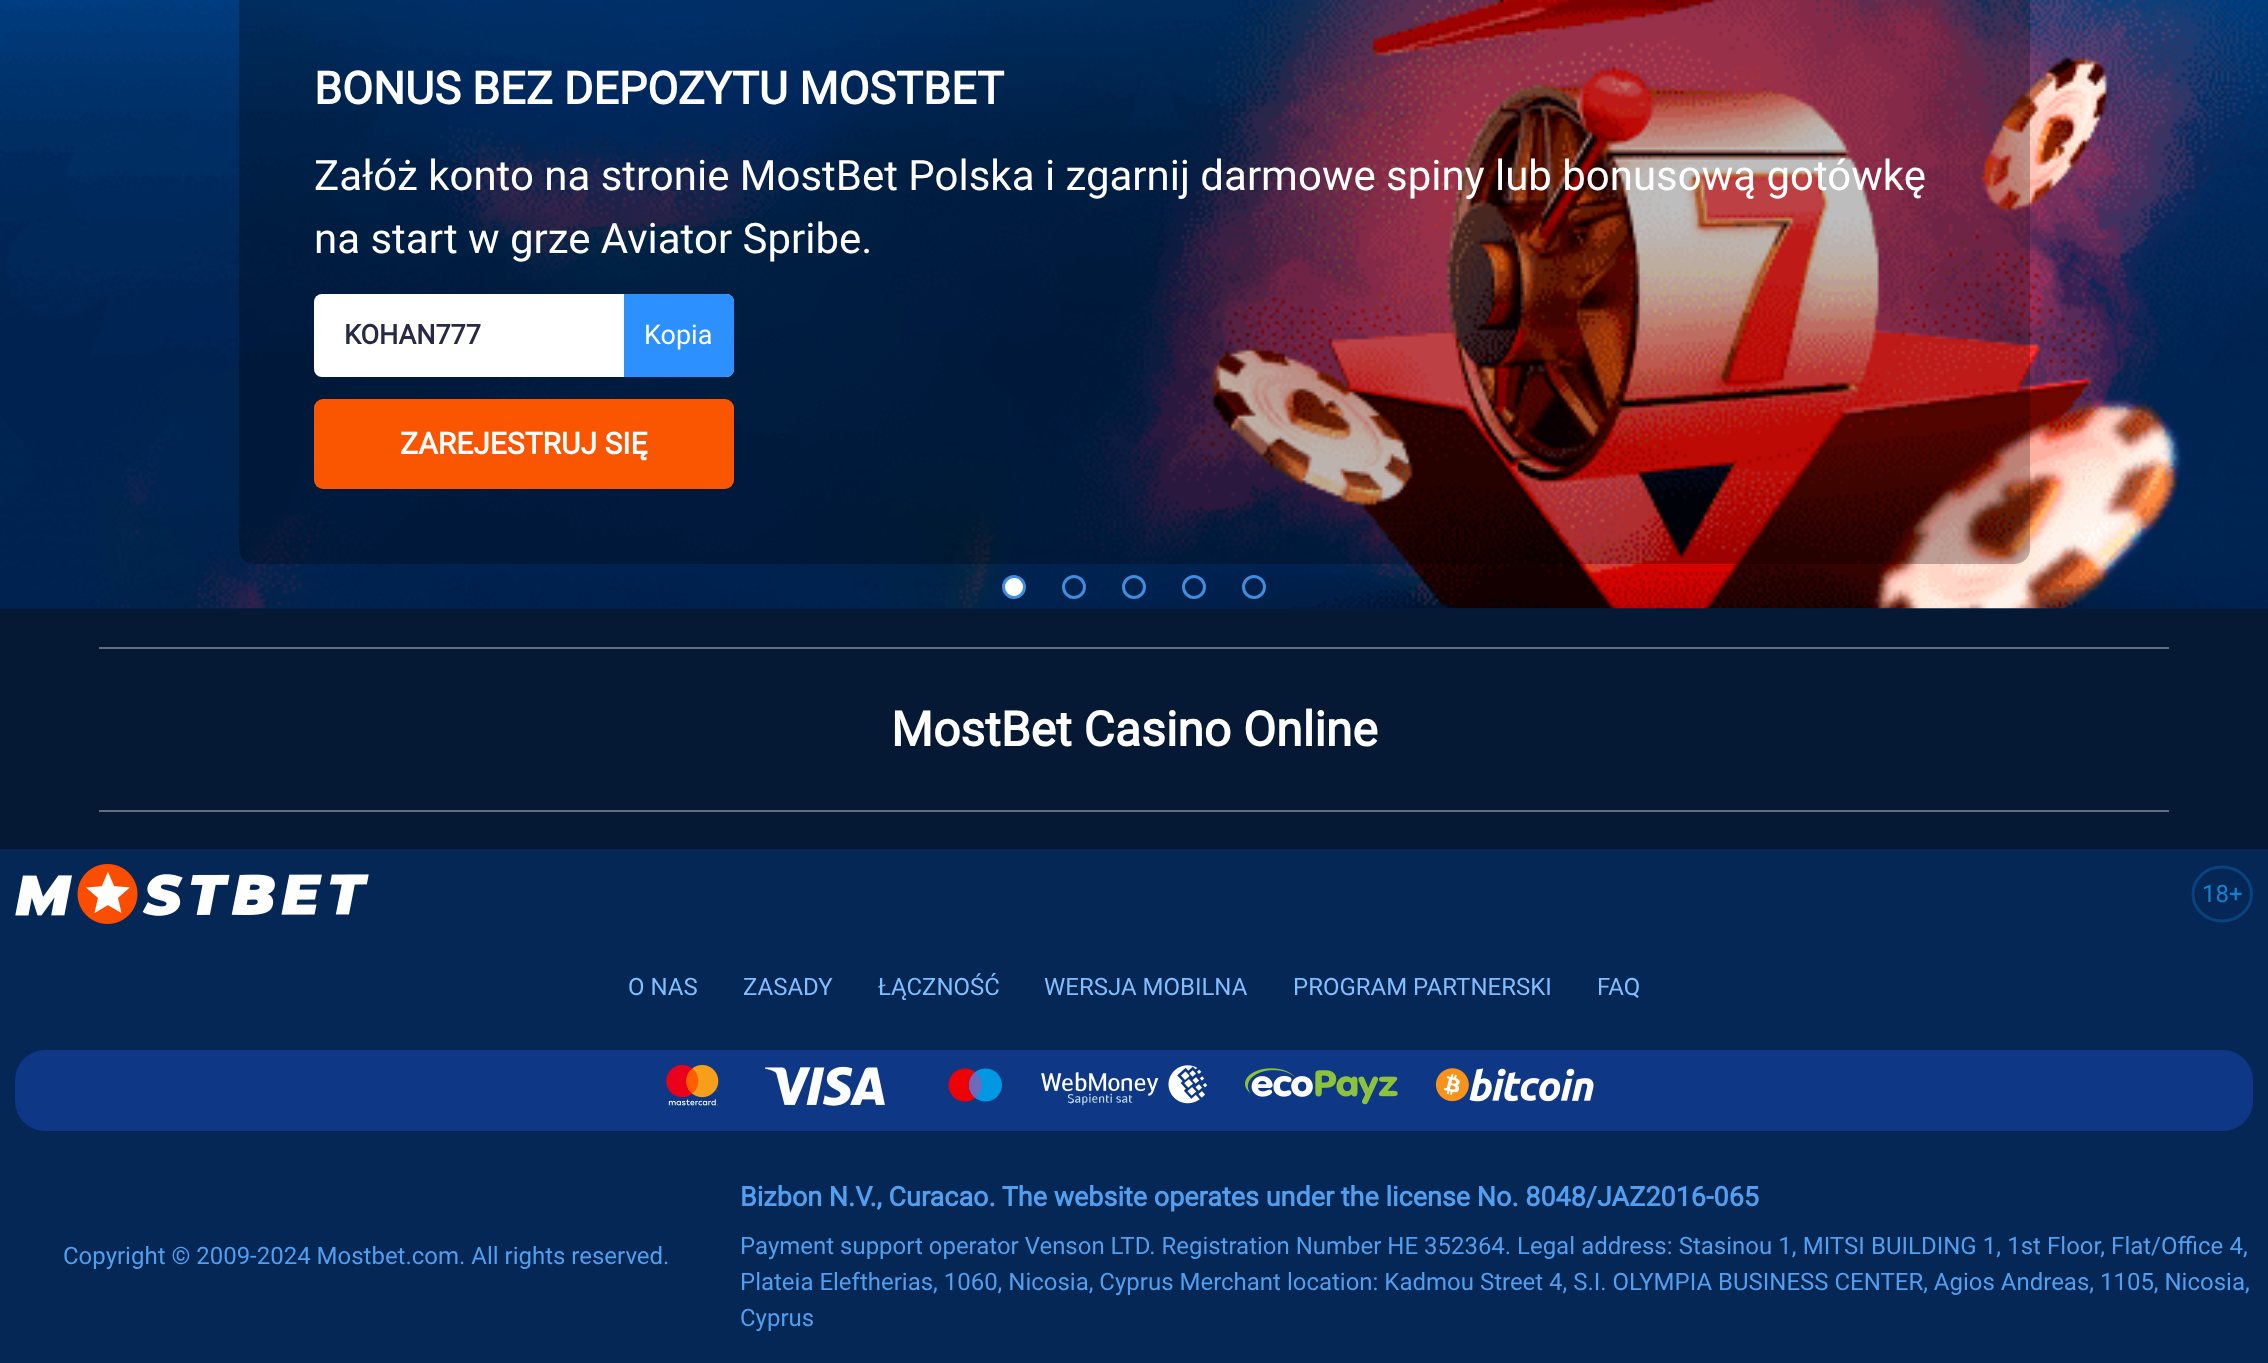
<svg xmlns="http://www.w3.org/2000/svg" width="2268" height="1363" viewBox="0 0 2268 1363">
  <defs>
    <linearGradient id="g1" gradientUnits="userSpaceOnUse" x1="1134" y1="609" x2="1134" y2="-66"><stop offset="0.22" stop-color="#001e46"/><stop offset="1" stop-color="#0a519e"/></linearGradient>
  </defs>
  <rect width="100%" height="100%" fill="#051935"/>
  <rect x="0" y="608" width="2268" height="1" fill="url(#g1)"/>
  <image x="0" y="0" width="2268" height="609" href="img1.png"/>
  <rect x="239" y="-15" width="1791" height="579" rx="15" fill="#000000" fill-opacity="0.26"/>
  <text x="314" y="104" font-family="Roboto" font-size="45" font-weight="bold" fill="#ffffff">BONUS BEZ DEPOZYTU MOSTBET</text>
  <text x="314" y="190" font-family="Roboto" font-size="42" fill="#ffffff">Załóż konto na stronie MostBet Polska i zgarnij darmowe spiny lub bonusową gotówkę</text>
  <text x="314" y="253" font-family="Roboto" font-size="42" fill="#ffffff">na start w grze Aviator Spribe.</text>
  <rect x="314" y="294" width="420" height="83" rx="8" fill="#ffffff"/>
  <text x="344" y="344" font-family="Roboto" font-size="27" font-weight="bold" fill="#282a45">KOHAN777</text>
  <path d="M624 294H726C730.5 294 734 297.5 734 302V369C734 373.5 730.5 377 726 377H624Z" fill="#2c91ff"/>
  <text x="644" y="344" font-family="Roboto" font-size="27" fill="#ffffff">Kopia</text>
  <rect x="314" y="399" width="420" height="90" rx="9" fill="#fa5500"/>
  <text x="400" y="454" font-family="Roboto" font-size="30" font-weight="bold" fill="#ffffff">ZAREJESTRUJ SIĘ</text>
  <circle cx="1014" cy="587" r="10.5" fill="#ffffff" stroke="#428cdc" stroke-width="3"/>
  <circle cx="1074" cy="587" r="10.5" fill="none" stroke="#428cdc" stroke-width="3"/>
  <circle cx="1134" cy="587" r="10.5" fill="none" stroke="#428cdc" stroke-width="3"/>
  <circle cx="1194" cy="587" r="10.5" fill="none" stroke="#428cdc" stroke-width="3"/>
  <circle cx="1254" cy="587" r="10.5" fill="none" stroke="#428cdc" stroke-width="3"/>
  <rect x="99" y="647" width="2070" height="2" fill="#626e80"/>
  <rect x="99" y="810" width="2070" height="2" fill="#626e80"/>
  <text x="891" y="746" font-family="Roboto" font-size="48" font-weight="bold" fill="#ffffff">MostBet Casino Online</text>
  <rect x="0" y="849" width="2268" height="514" fill="#052755"/>
  <image x="15" y="864" width="354" height="60" href="img2.png"/>
  <path d="M2222 867C2238.5 867 2251.5 879 2251.5 894C2251.5 909 2238.5 921 2222 921C2206 921 2193 909 2193 894C2193 879 2206 867 2222 867Z" fill="none" stroke="#09437f" stroke-width="3"/>
  <text x="2202" y="902" font-family="Roboto" font-size="24" fill="#1183d3">18+</text>
  <text x="628" y="995" font-family="Roboto" font-size="24" fill="#81beff">O NAS</text>
  <text x="743" y="995" font-family="Roboto" font-size="24" fill="#81beff">ZASADY</text>
  <text x="878" y="995" font-family="Roboto" font-size="24" fill="#81beff">ŁĄCZNOŚĆ</text>
  <text x="1044" y="995" font-family="Roboto" font-size="24" fill="#81beff">WERSJA MOBILNA</text>
  <text x="1293" y="995" font-family="Roboto" font-size="24" fill="#81beff">PROGRAM PARTNERSKI</text>
  <text x="1597" y="995" font-family="Roboto" font-size="24" fill="#81beff">FAQ</text>
  <rect x="15" y="1050" width="2238" height="81" rx="30" fill="#0e3885"/>
  <image x="666" y="1065" width="53" height="41" href="img3.png"/>
  <image x="765" y="1066" width="120" height="40" href="img4.png"/>
  <circle cx="965" cy="1085" r="16.5" fill="#ee0005"/>
  <circle cx="985.5" cy="1085" r="16.5" fill="#0098e2"/>
  <path d="M969 1085C969 1090.5 971.5 1095 975.5 1098C983.5 1091.5 984 1079 975.5 1072.5C971.5 1075.5 969 1080 969 1085Z" fill="#6c69bf"/>
  <image x="1041" y="1065" width="167" height="41" href="img5.png"/>
  <image x="1245" y="1068" width="153" height="37" href="img6.png"/>
  <image x="1435" y="1068" width="159" height="34" href="img7.png"/>
  <text x="63" y="1264" font-family="Roboto" font-size="24" fill="#529fef">Copyright © 2009-2024 Mostbet.com. All rights reserved.</text>
  <text x="740" y="1206" font-family="Roboto" font-size="27" font-weight="bold" fill="#529fef">Bizbon N.V., Curacao. The website operates under the license No. 8048/JAZ2016-065</text>
  <text x="740" y="1254" font-family="Roboto" font-size="24" fill="#529fef">Payment support operator Venson LTD. Registration Number HE 352364.</text>
  <text x="1517" y="1254" word-spacing="0.25" font-family="Roboto" font-size="24" fill="#529fef">Legal address: Stasinou 1, MITSI BUILDING 1, 1st Floor, Flat/Office 4,</text>
  <text x="740" y="1290" font-family="Roboto" font-size="24" fill="#529fef">Plateia Eleftherias, 1060, Nicosia, Cyprus Merchant location: Kadmou Street 4, S.I. OLYMPIA BUSINESS CENTER, Agios Andreas, 1105, Nicosia,</text>
  <text x="740" y="1326" font-family="Roboto" font-size="24" fill="#529fef">Cyprus</text>
</svg>
